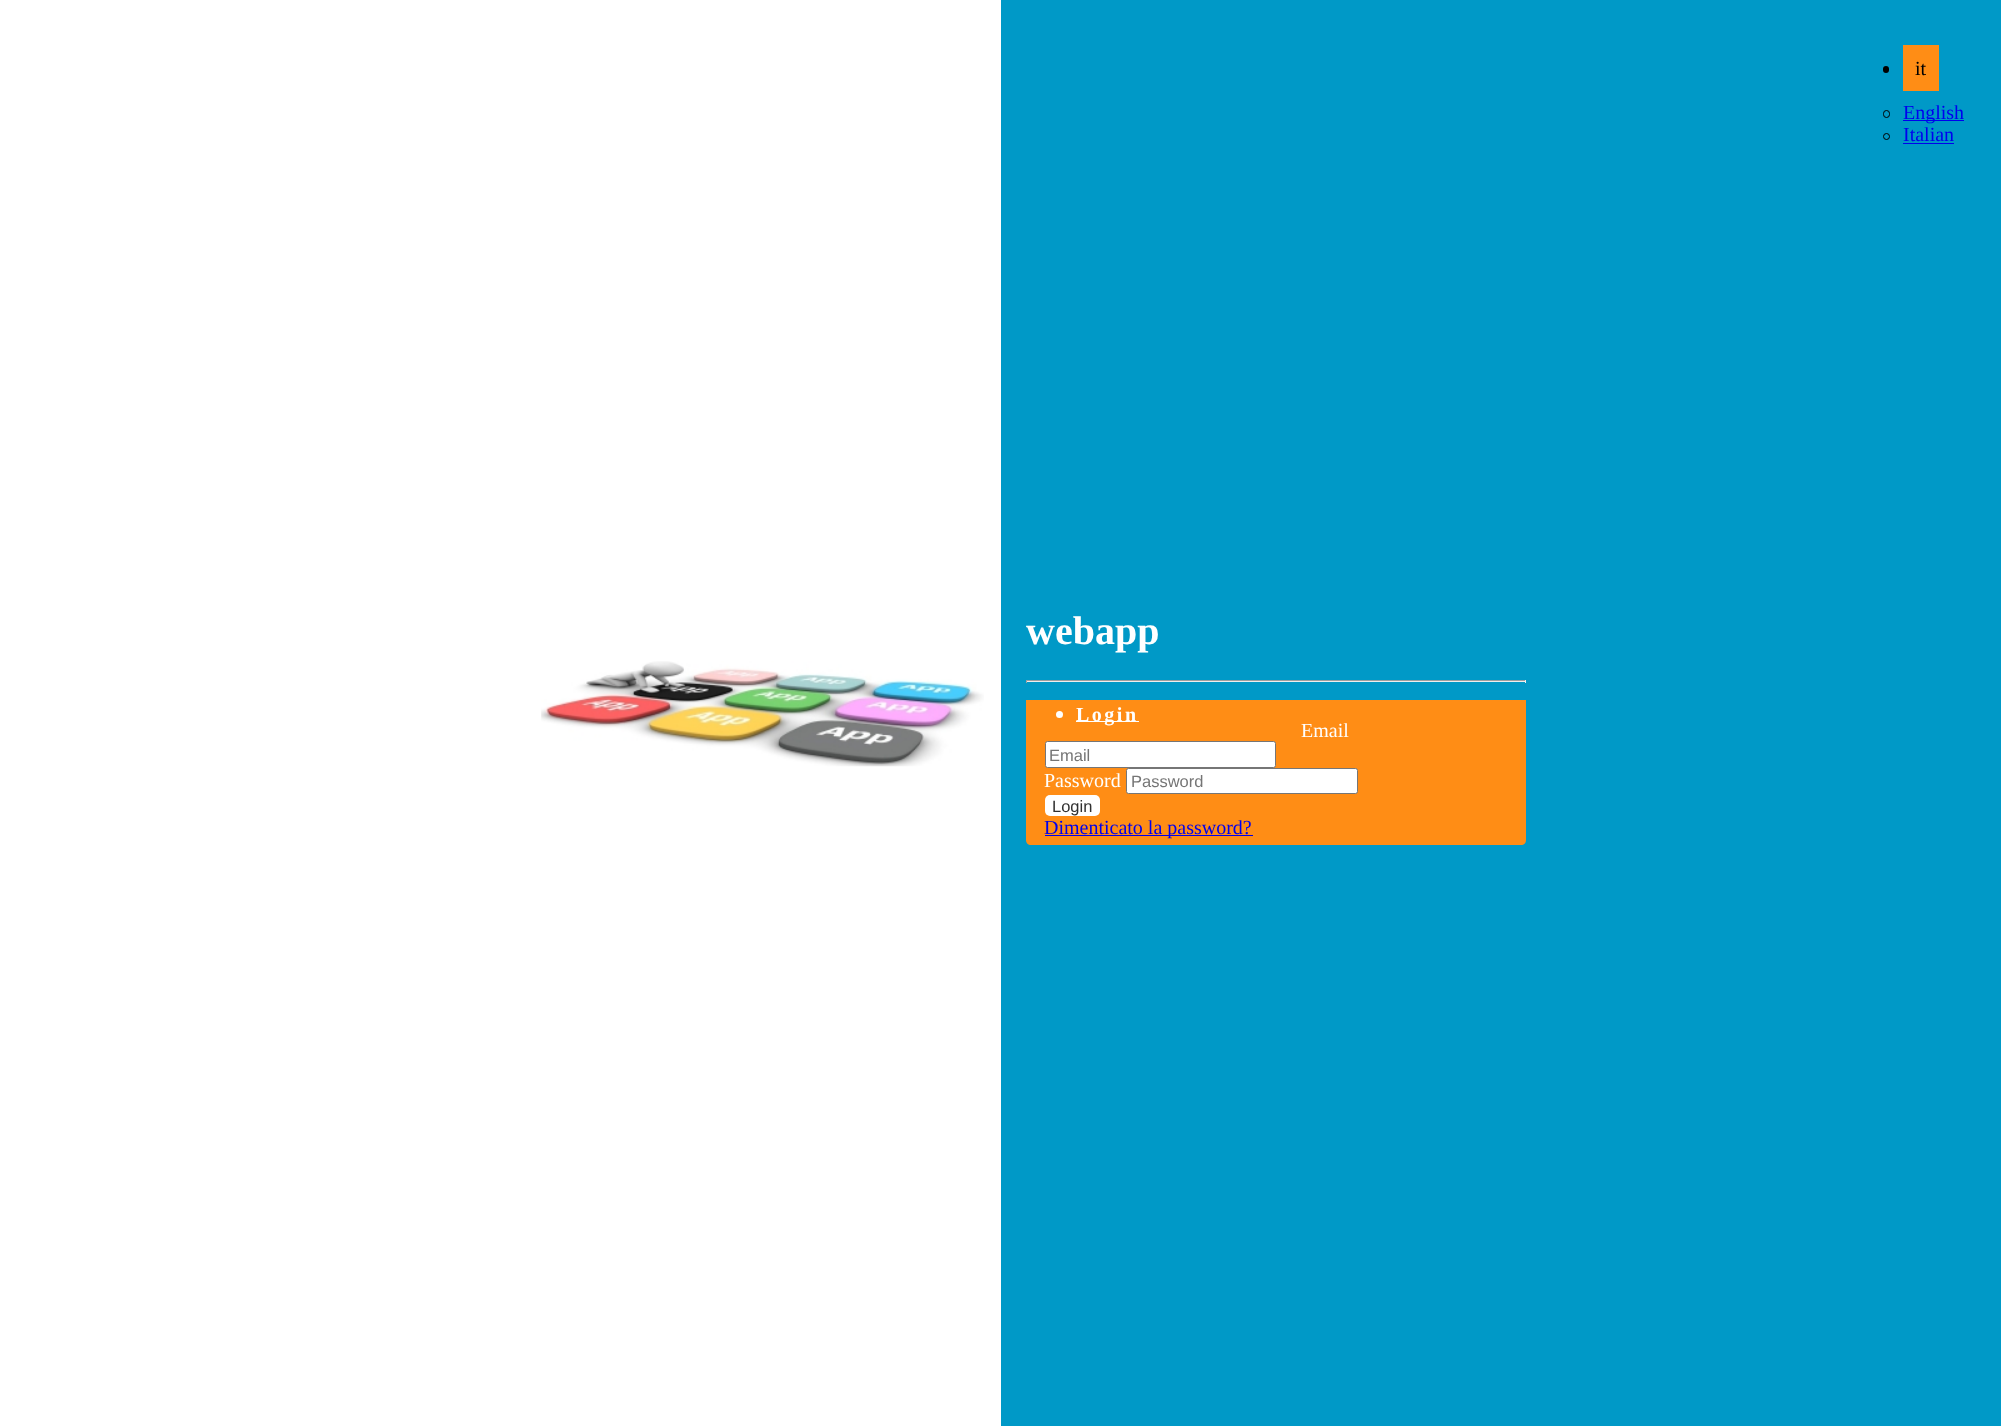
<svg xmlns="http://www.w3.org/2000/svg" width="2001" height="1426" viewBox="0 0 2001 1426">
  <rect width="100%" height="100%" fill="#ffffff"/>
  <image x="541" y="661" width="443" height="106" href="img1.png"/>
  <rect x="1001" y="0" width="1000" height="1426" fill="#0099c7"/>
  <rect x="1883" y="66" width="6" height="7" rx="3" fill="#000000"/>
  <rect x="1903" y="45" width="36" height="46" fill="#ff8d15"/>
  <text x="1915" y="75" font-family="Liberation Serif" font-size="20" fill="#000000">it</text>
  <rect x="1883.5" y="110.5" width="6" height="7" rx="3" fill="none" stroke="#000000"/>
  <rect x="1903" y="120" width="61" height="1" fill="#0000ee"/>
  <text x="1903" y="119" font-family="Liberation Serif" font-size="20" fill="#0000ee">English</text>
  <circle cx="1886.5" cy="136.5" r="3" fill="none" stroke="#000000"/>
  <text x="1903" y="141" font-family="Liberation Serif" font-size="20" fill="#0000ee">Italian</text>
  <rect x="1903" y="143" width="51" height="1" fill="#0000ee"/>
  <text x="1026" y="644" font-family="Liberation Serif" font-size="40" font-weight="bold" fill="#ffffff">webapp</text>
  <rect x="1026" y="680" width="500" height="1" fill="#9f9f9f"/>
  <rect x="1525" y="680" width="1" height="3" fill="#eeeeee"/>
  <rect x="1026" y="681" width="500" height="1" fill="#eeeeee"/>
  <rect x="1026" y="680" width="1" height="3" fill="#9f9f9f"/>
  <path d="M1026 700H1526V840C1526 843 1524 845 1521 845H1031C1028 845 1026 843 1026 840Z" fill="#ff8d15"/>
  <circle cx="1059.5" cy="714.5" r="3.5" fill="#ffffff"/>
  <rect x="1076" y="721" width="63" height="1" fill="#ffffff"/>
  <text x="1076" y="721" font-family="Liberation Serif" font-size="20" font-weight="bold" letter-spacing="2.5" fill="#ffffff">Login</text>
  <text x="1301" y="737" font-family="Liberation Serif" font-size="20" fill="#ffffff">Email</text>
  <rect x="1045.5" y="741.5" width="230" height="26" rx="2" fill="#ffffff" stroke="#767676"/>
  <text x="1049" y="761" font-family="Liberation Sans" font-size="16.5" fill="#757575">Email</text>
  <text x="1044" y="787" font-family="Liberation Serif" font-size="20" fill="#ffffff">Password</text>
  <rect x="1126.5" y="768.5" width="231" height="25" rx="2" fill="#ffffff" stroke="#767676"/>
  <text x="1131" y="787" font-family="Liberation Sans" font-size="16.5" fill="#757575">Password</text>
  <rect x="1045" y="795" width="55" height="21" rx="5" fill="#ffffff"/>
  <text x="1052" y="812" font-family="Liberation Sans" font-size="16.5" fill="#303030">Login</text>
  <rect x="1045" y="835" width="208" height="1" fill="#0000ee"/>
  <text x="1044" y="834" font-family="Liberation Serif" font-size="20" fill="#0000ee">Dimenticato la password?</text>
</svg>
